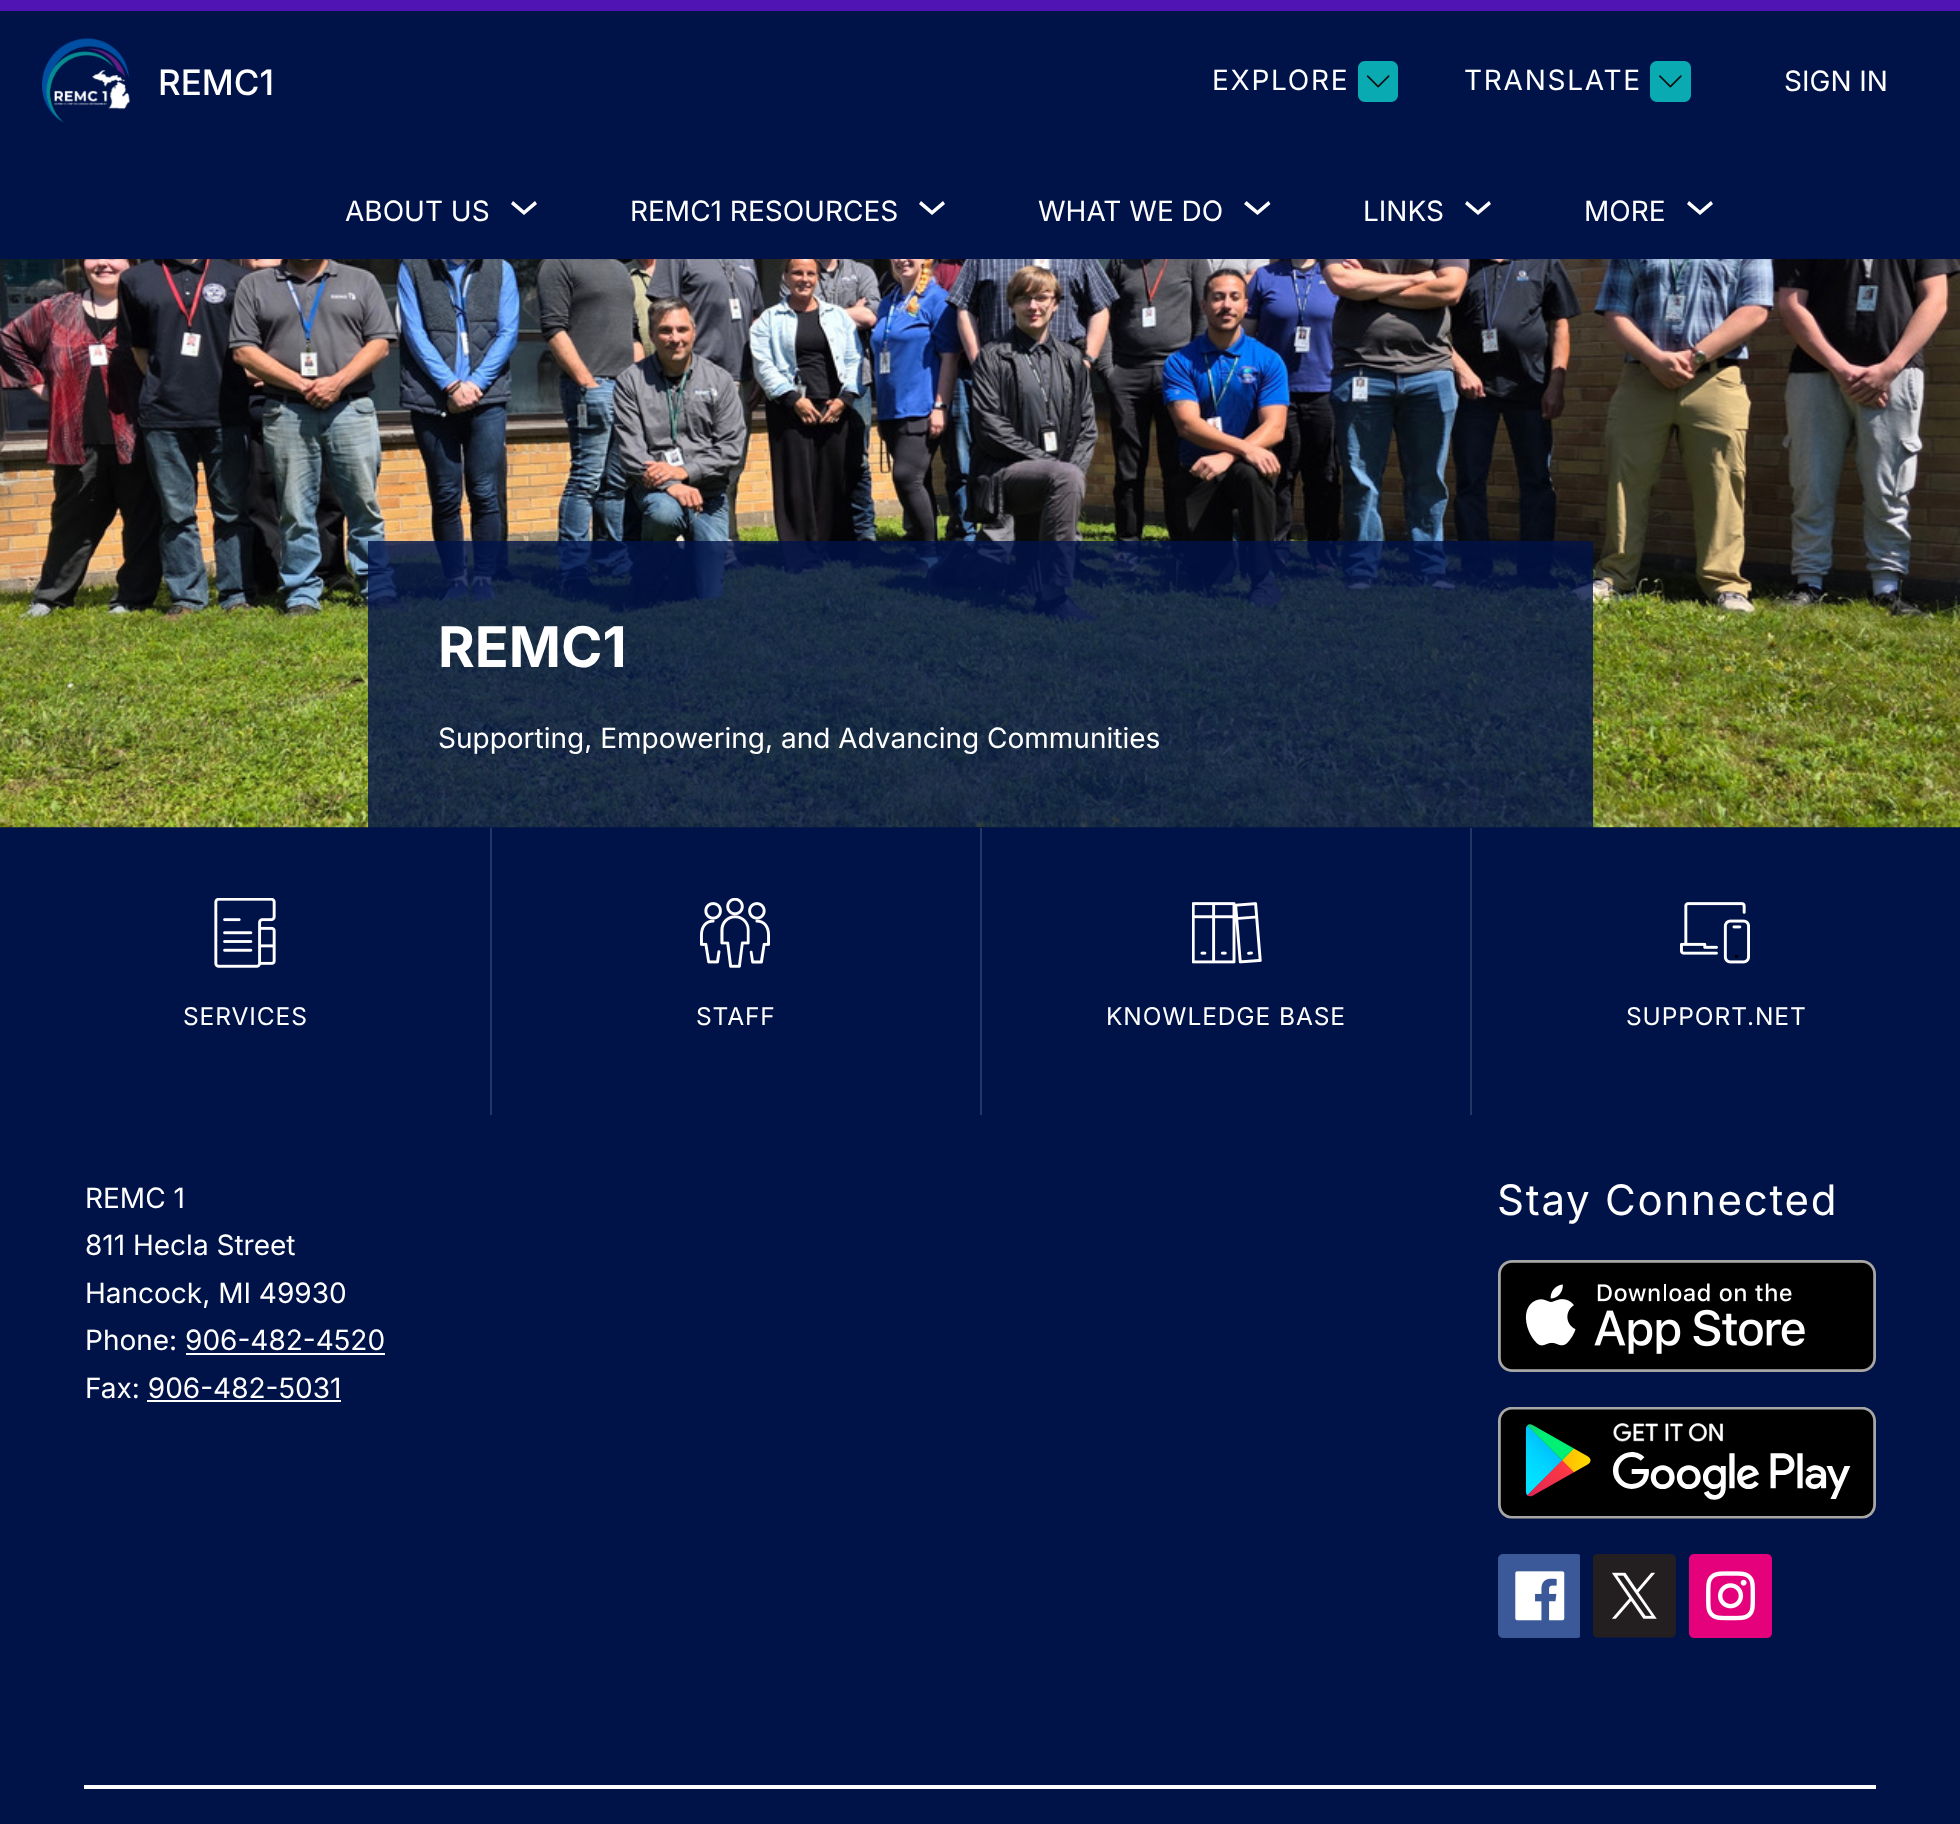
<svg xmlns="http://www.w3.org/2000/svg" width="1960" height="1824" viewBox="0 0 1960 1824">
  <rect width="100%" height="100%" fill="#001349"/>
  <rect x="0" y="0" width="1960" height="11" fill="#5013b4"/>
  <image x="42" y="38" width="88" height="85" href="img1.png"/>
  <text x="158" y="95" font-family="Inter" font-size="35" font-weight="500" fill="#ffffff">REMC1</text>
  <text x="1212" y="90" font-family="Inter" font-size="28" letter-spacing="1.75" fill="#ffffff">EXPLORE</text>
  <image x="1358" y="61" width="40" height="41" href="img2.png"/>
  <text x="1464" y="90" font-family="Inter" font-size="28" letter-spacing="1.75" fill="#ffffff">TRANSLATE</text>
  <image x="1650" y="61" width="41" height="41" href="img3.png"/>
  <text x="1784" y="91" font-family="Inter" font-size="28" fill="#ffffff">SIGN IN</text>
  <text x="345" y="221" font-family="Inter" font-size="28" fill="#ffffff">ABOUT US</text>
  <path d="M535 201L524 210.5L513 201L511 204L524 215L537 204Z" fill="#ffffff" fill-rule="evenodd"/>
  <text x="630" y="221" font-family="Inter" font-size="28" fill="#ffffff">REMC1 RESOURCES</text>
  <path d="M943 201L932 210.5L921 201L919 204L932 215L945 204Z" fill="#ffffff" fill-rule="evenodd"/>
  <text x="1038" y="221" font-family="Inter" font-size="28" fill="#ffffff">WHAT WE DO</text>
  <path d="M1268.5 201L1257.5 210.5L1246.5 201L1244 204L1257.5 215L1270.5 204Z" fill="#ffffff" fill-rule="evenodd"/>
  <text x="1363" y="221" font-family="Inter" font-size="28" fill="#ffffff">LINKS</text>
  <path d="M1489 201L1478 210.5L1467 201L1465 204L1478 215L1491 204Z" fill="#ffffff" fill-rule="evenodd"/>
  <text x="1584" y="221" font-family="Inter" font-size="28" fill="#ffffff">MORE</text>
  <path d="M1711 201L1700 210.5L1689 201L1687 204L1700 215L1713 204Z" fill="#ffffff" fill-rule="evenodd"/>
  <image x="0" y="259" width="1960" height="569" href="img4.png"/>
  <rect x="368" y="541" width="1225" height="287" fill="#001349" fill-opacity="0.8"/>
  <text x="438" y="667" font-family="Inter" font-size="56" font-weight="bold" fill="#ffffff">REMC1</text>
  <text x="438" y="748" font-family="Inter" font-size="28" fill="#ffffff">Supporting, Empowering, and Advancing Communities</text>
  <image x="214" y="898" width="62" height="70" href="img5.png"/>
  <text x="183" y="1025" font-family="Inter" font-size="24.5" letter-spacing="0.9" fill="#ffffff">SERVICES</text>
  <rect x="490" y="828" width="2" height="287" fill="#263664"/>
  <image x="700" y="898" width="70" height="70" href="img6.png"/>
  <text x="696" y="1025" font-family="Inter" font-size="24.5" letter-spacing="0.9" fill="#ffffff">STAFF</text>
  <rect x="980" y="828" width="2" height="287" fill="#263664"/>
  <image x="1192" y="902" width="70" height="62" href="img7.png"/>
  <text x="1106" y="1025" font-family="Inter" font-size="24.5" letter-spacing="0.9" fill="#ffffff">KNOWLEDGE BASE</text>
  <rect x="1470" y="828" width="2" height="287" fill="#263664"/>
  <image x="1680" y="902" width="70" height="62" href="img8.png"/>
  <text x="1626" y="1025" font-family="Inter" font-size="24.5" letter-spacing="0.9" fill="#ffffff">SUPPORT.NET</text>
  <text x="85" y="1208" font-family="Inter" font-size="28" fill="#ffffff">REMC 1</text>
  <text x="85" y="1255" font-family="Inter" font-size="28" fill="#ffffff">811 Hecla Street</text>
  <text x="85" y="1303" font-family="Inter" font-size="28" fill="#ffffff">Hancock, MI 49930</text>
  <text x="85" y="1350" font-family="Inter" font-size="28" fill="#ffffff">Phone: 906-482-4520</text>
  <rect x="186" y="1353" width="199" height="2" fill="#ffffff"/>
  <text x="85" y="1398" font-family="Inter" font-size="28" fill="#ffffff">Fax: 906-482-5031</text>
  <rect x="147" y="1400" width="194" height="2" fill="#ffffff"/>
  <text x="1497" y="1215" font-family="Inter" font-size="42" letter-spacing="1.75" fill="#ffffff">Stay Connected</text>
  <image x="1498" y="1260" width="378" height="112" href="img9.png"/>
  <image x="1498" y="1407" width="378" height="112" href="img10.png"/>
  <image x="1498" y="1554" width="82" height="84" href="img11.png"/>
  <image x="1593" y="1554" width="83" height="84" href="img12.png"/>
  <image x="1689" y="1554" width="83" height="84" href="img13.png"/>
  <rect x="84" y="1785" width="1792" height="4" fill="#ffffff"/>
</svg>
